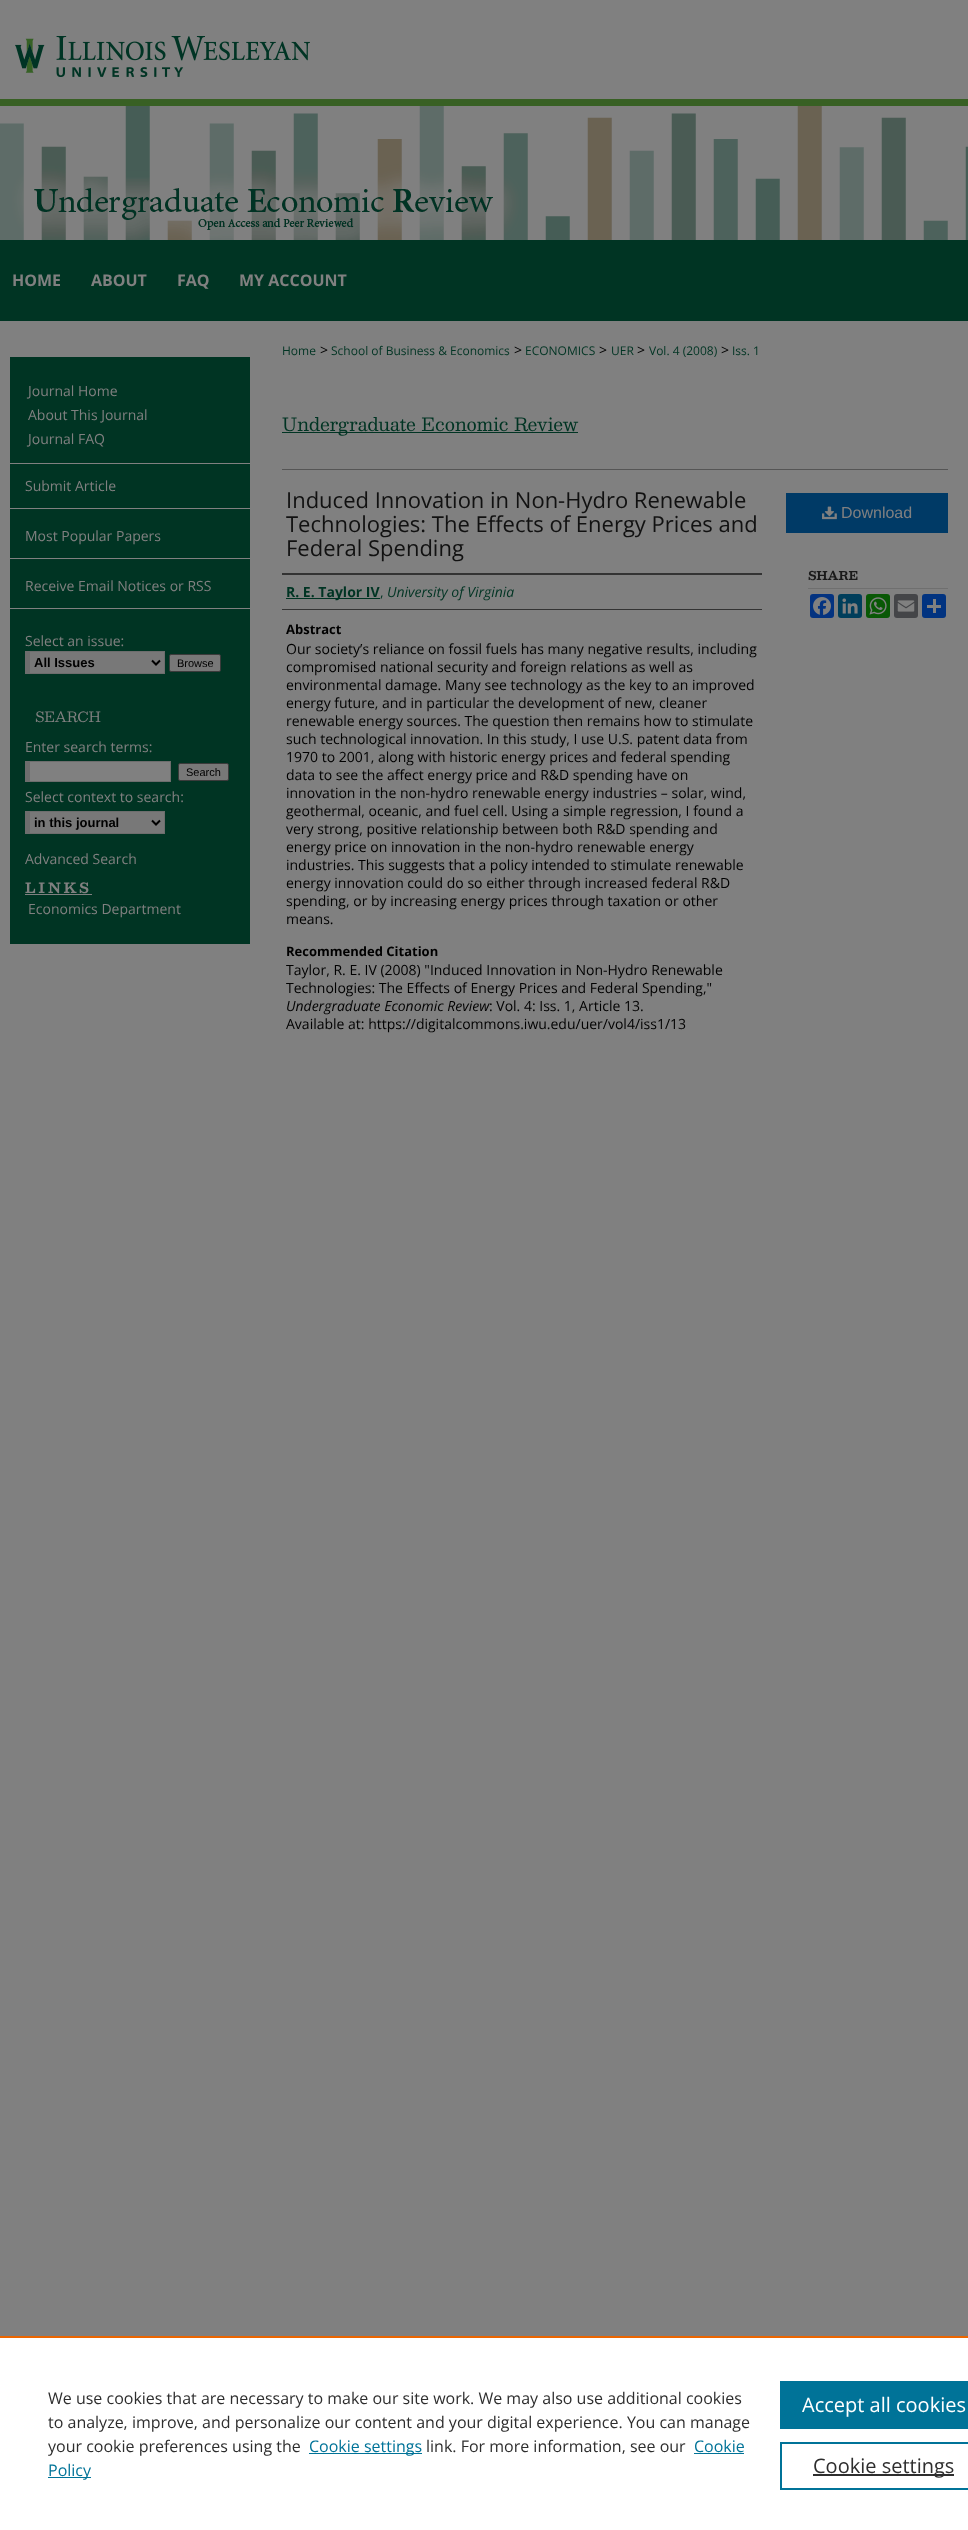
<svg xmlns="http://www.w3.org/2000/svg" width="968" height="2530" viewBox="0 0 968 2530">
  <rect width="100%" height="100%" fill="#808080"/>
  <image x="0" y="240" width="968" height="81" href="img1.png"/>
  <image x="0" y="0" width="968" height="240" href="img2.png"/>
  <text x="12" y="286" font-family="Open Sans" font-size="16" font-weight="bold" fill="#808080">HOME</text>
  <text x="91" y="286" font-family="Open Sans" font-size="16" font-weight="bold" fill="#808080">ABOUT</text>
  <text x="177" y="286" font-family="Open Sans" font-size="16" font-weight="bold" fill="#808080">FAQ</text>
  <text x="239" y="286" font-family="Open Sans" font-size="16" font-weight="bold" fill="#808080">MY ACCOUNT</text>
  <rect x="10" y="357" width="240" height="587" fill="#003423"/>
  <text x="28" y="396" font-family="Open Sans" font-size="14" fill="#808080">Journal Home</text>
  <text x="28" y="420" font-family="Open Sans" font-size="14" fill="#808080">About This Journal</text>
  <text x="28" y="444" font-family="Open Sans" font-size="14" fill="#808080">Journal FAQ</text>
  <rect x="10" y="463" width="240" height="1" fill="#808080"/>
  <rect x="10" y="508" width="240" height="1" fill="#808080"/>
  <text x="25" y="491" font-family="Open Sans" font-size="14" fill="#808080">Submit Article</text>
  <rect x="10" y="558" width="240" height="1" fill="#808080"/>
  <text x="25" y="541" font-family="Open Sans" font-size="14" fill="#808080">Most Popular Papers</text>
  <rect x="10" y="608" width="240" height="1" fill="#808080"/>
  <text x="25" y="591" font-family="Open Sans" font-size="14" fill="#808080">Receive Email Notices or RSS</text>
  <text x="25" y="646" font-family="Open Sans" font-size="14" fill="#808080">Select an issue:</text>
  <rect x="30" y="652" width="134" height="21" fill="#787878"/>
  <rect x="25" y="651" width="140" height="1" fill="#6d6d6d"/>
  <rect x="164" y="651" width="1" height="23" fill="#6d6d6d"/>
  <rect x="25" y="673" width="140" height="1" fill="#6d6d6d"/>
  <rect x="25" y="651" width="5" height="23" fill="#6d6d6d"/>
  <path d="M152 660.5L156 664.5L160 660.5" fill="none" stroke="#000000" stroke-width="2"/>
  <text x="34" y="667" font-family="Liberation Sans" font-size="13" font-weight="bold" fill="#000000">All Issues</text>
  <rect x="169.5" y="654.5" width="51" height="17" rx="1.5" fill="#787878" stroke="#3b3b3b"/>
  <text x="177" y="667" font-family="Liberation Sans" font-size="11" fill="#000000">Browse</text>
  <text x="35" y="722" font-family="Besley" font-size="14" fill="#808080">SEARCH</text>
  <text x="25" y="752" font-family="Open Sans" font-size="14" fill="#808080">Enter search terms:</text>
  <rect x="30" y="762" width="140" height="19" fill="#808080"/>
  <rect x="25" y="761" width="146" height="1" fill="#6d6d6d"/>
  <rect x="170" y="761" width="1" height="21" fill="#6d6d6d"/>
  <rect x="25" y="781" width="146" height="1" fill="#6d6d6d"/>
  <rect x="25" y="761" width="5" height="21" fill="#6d6d6d"/>
  <rect x="178.5" y="763.5" width="50" height="17" rx="1.5" fill="#787878" stroke="#3b3b3b"/>
  <text x="186" y="776" font-family="Liberation Sans" font-size="11" fill="#000000">Search</text>
  <text x="25" y="802" font-family="Open Sans" font-size="14" fill="#808080">Select context to search:</text>
  <rect x="30" y="812" width="134" height="21" fill="#787878"/>
  <rect x="25" y="811" width="140" height="1" fill="#6d6d6d"/>
  <rect x="164" y="811" width="1" height="23" fill="#6d6d6d"/>
  <rect x="25" y="833" width="140" height="1" fill="#6d6d6d"/>
  <rect x="25" y="811" width="5" height="23" fill="#6d6d6d"/>
  <path d="M152 820.5L156 824.5L160 820.5" fill="none" stroke="#000000" stroke-width="2"/>
  <text x="34" y="827" font-family="Liberation Sans" font-size="13" font-weight="bold" fill="#000000">in this journal</text>
  <text x="25" y="864" font-family="Open Sans" font-size="14" fill="#808080">Advanced Search</text>
  <text x="25" y="893" font-family="Besley" font-size="14" font-weight="bold" letter-spacing="2.75" fill="#808080">LINKS</text>
  <rect x="25" y="894" width="67" height="1" fill="#808080"/>
  <text x="28" y="914" font-family="Open Sans" font-size="14" fill="#808080">Economics Department</text>
  <text x="282" y="355" font-family="Open Sans" font-size="12" fill="#003423">Home</text>
  <text x="320" y="355" font-family="Open Sans" font-size="14" fill="#000000">&gt;</text>
  <text x="331" y="355" font-family="Open Sans" font-size="12" fill="#003423">School of Business &amp; Economics</text>
  <text x="514" y="355" font-family="Open Sans" font-size="14" fill="#000000">&gt;</text>
  <text x="525" y="355" font-family="Open Sans" font-size="12" fill="#003423">ECONOMICS</text>
  <text x="599" y="355" font-family="Open Sans" font-size="14" fill="#000000">&gt;</text>
  <text x="611" y="355" font-family="Open Sans" font-size="12" fill="#003423">UER</text>
  <text x="637" y="355" font-family="Open Sans" font-size="14" fill="#000000">&gt;</text>
  <text x="649" y="355" font-family="Open Sans" font-size="12" fill="#003423">Vol. 4 (2008)</text>
  <text x="721" y="355" font-family="Open Sans" font-size="14" fill="#000000">&gt;</text>
  <text x="732" y="355" font-family="Open Sans" font-size="12" fill="#003423">Iss. 1</text>
  <rect x="282" y="432" width="296" height="1" fill="#003423"/>
  <text x="282" y="431" font-family="Besley" font-size="18" fill="#003423">Undergraduate Economic Review</text>
  <rect x="282" y="469" width="666" height="1" fill="#555555"/>
  <text x="286" y="508" font-family="Open Sans" font-size="22" fill="#111111">Induced Innovation in Non-Hydro Renewable</text>
  <text x="286" y="532" font-family="Open Sans" font-size="22" fill="#111111">Technologies: The Effects of Energy Prices and</text>
  <text x="286" y="556" font-family="Open Sans" font-size="22" fill="#111111">Federal Spending</text>
  <rect x="282" y="573" width="480" height="2" fill="#333333"/>
  <rect x="282" y="609" width="480" height="1" fill="#333333"/>
  <rect x="286" y="598" width="94" height="1" fill="#003423"/>
  <text x="286" y="597" font-family="Open Sans" font-size="14" font-weight="bold" fill="#003423">R. E. Taylor IV</text>
  <text x="380" y="597" font-family="Open Sans" font-size="14" fill="#003423">,</text>
  <text x="387" y="597" font-family="Open Sans" font-size="14" font-style="italic" fill="#003423">University of Virginia</text>
  <text x="286" y="634" font-family="Open Sans" font-size="13" font-weight="bold" fill="#000000">Abstract</text>
  <text x="286" y="654" font-family="Open Sans" font-size="14" fill="#000000">Our society’s reliance on fossil fuels has many negative results, including</text>
  <text x="286" y="672" font-family="Open Sans" font-size="14" fill="#000000">compromised national security and foreign relations as well as</text>
  <text x="286" y="690" font-family="Open Sans" font-size="14" fill="#000000">environmental damage. Many see technology as the key to an improved</text>
  <text x="286" y="708" font-family="Open Sans" font-size="14" fill="#000000">energy future, and in particular the development of new, cleaner</text>
  <text x="286" y="726" font-family="Open Sans" font-size="14" fill="#000000">renewable energy sources. The question then remains how to stimulate</text>
  <text x="286" y="744" font-family="Open Sans" font-size="14" fill="#000000">such technological innovation. In this study, I use U.S. patent data from</text>
  <text x="286" y="762" font-family="Open Sans" font-size="14" fill="#000000">1970 to 2001, along with historic energy prices and federal spending</text>
  <text x="286" y="780" font-family="Open Sans" font-size="14" fill="#000000">data to see the affect energy price and R&amp;D spending have on</text>
  <text x="286" y="798" font-family="Open Sans" font-size="14" fill="#000000">innovation in the non-hydro renewable energy industries – solar, wind,</text>
  <text x="286" y="816" font-family="Open Sans" font-size="14" fill="#000000">geothermal, oceanic, and fuel cell. Using a simple regression, I found a</text>
  <text x="286" y="834" font-family="Open Sans" font-size="14" fill="#000000">very strong, positive relationship between both R&amp;D spending and</text>
  <text x="286" y="852" font-family="Open Sans" font-size="14" fill="#000000">energy price on innovation in the non-hydro renewable energy</text>
  <text x="286" y="870" font-family="Open Sans" font-size="14" fill="#000000">industries. This suggests that a policy intended to stimulate renewable</text>
  <text x="286" y="888" font-family="Open Sans" font-size="14" fill="#000000">energy innovation could do so either through increased federal R&amp;D</text>
  <text x="286" y="906" font-family="Open Sans" font-size="14" fill="#000000">spending, or by increasing energy prices through taxation or other</text>
  <text x="286" y="924" font-family="Open Sans" font-size="14" fill="#000000">means.</text>
  <text x="286" y="956" font-family="Open Sans" font-size="13" font-weight="bold" fill="#000000">Recommended Citation</text>
  <text x="286" y="975" font-family="Open Sans" font-size="14" fill="#000000">Taylor, R. E. IV (2008) "Induced Innovation in Non-Hydro Renewable</text>
  <text x="286" y="993" font-family="Open Sans" font-size="14" fill="#000000">Technologies: The Effects of Energy Prices and Federal Spending,"</text>
  <text x="286" y="1011" font-family="Open Sans" font-size="14" font-style="italic" fill="#000000">Undergraduate Economic Review</text>
  <text x="489" y="1011" font-family="Open Sans" font-size="14" fill="#000000">: Vol. 4: Iss. 1, Article 13.</text>
  <text x="286" y="1029" font-family="Open Sans" font-size="14" fill="#000000">Available at: https://digitalcommons.iwu.edu/uer/vol4/iss1/13</text>
  <rect x="786" y="493" width="162" height="40" fill="#003a66"/>
  <image x="822" y="506" width="15" height="14" href="img3.png"/>
  <text x="841" y="518" font-family="Liberation Sans" font-size="16" fill="#808080">Download</text>
  <rect x="808" y="588" width="140" height="1" fill="#6f6f6f"/>
  <text x="808" y="580" font-family="Besley" font-size="12" font-weight="bold" fill="#1a1a1a">SHARE</text>
  <rect x="810" y="594" width="24" height="24" rx="3" fill="#043380"/>
  <image x="813" y="597" width="18" height="18" href="img4.png"/>
  <rect x="838" y="594" width="24" height="24" rx="3" fill="#003e5b"/>
  <image x="842" y="598" width="16" height="16" href="img5.png"/>
  <rect x="866" y="594" width="24" height="24" rx="3" fill="#095805"/>
  <image x="869" y="597" width="18" height="18" href="img6.png"/>
  <rect x="894" y="594" width="24" height="24" rx="3" fill="#444548"/>
  <image x="897" y="600" width="18" height="12" href="img7.png"/>
  <rect x="922" y="594" width="24" height="24" rx="3" fill="#013380"/>
  <rect x="933" y="599" width="3" height="14" fill="#808080"/>
  <rect x="927" y="605" width="14" height="3" fill="#808080"/>
  <rect x="0" y="2338" width="968" height="192" fill="#ffffff"/>
  <rect x="0" y="2336" width="968" height="2" fill="#eb6500"/>
  <text x="48" y="2404" font-family="Open Sans" font-size="16" fill="#2e2e2e">We use cookies that are necessary to make our site work. We may also use additional cookies</text>
  <text x="48" y="2428" font-family="Open Sans" font-size="16" fill="#2e2e2e">to analyze, improve, and personalize our content and your digital experience. You can manage</text>
  <text x="48" y="2452" font-family="Open Sans" font-size="16" fill="#2e2e2e">your cookie preferences using the</text>
  <rect x="309" y="2453" width="113" height="1" fill="#007398"/>
  <text x="309" y="2452" font-family="Open Sans" font-size="16" fill="#007398">Cookie settings</text>
  <text x="426" y="2452" font-family="Open Sans" font-size="16" fill="#2e2e2e">link. For more information, see our</text>
  <text x="694" y="2452" font-family="Open Sans" font-size="16" fill="#007398">Cookie</text>
  <rect x="694" y="2453" width="50" height="1" fill="#007398"/>
  <rect x="48" y="2477" width="43" height="1" fill="#007398"/>
  <text x="48" y="2476" font-family="Open Sans" font-size="16" fill="#007398">Policy</text>
  <rect x="780" y="2381" width="188" height="48" fill="#007398"/>
  <text x="802" y="2412" font-family="Open Sans" font-size="20" fill="#ffffff">Accept all cookies</text>
  <rect x="781" y="2443" width="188" height="46" fill="none" stroke="#007398" stroke-width="2"/>
  <rect x="813" y="2474" width="141" height="2" fill="#2e2e2e"/>
  <text x="813" y="2473" font-family="Open Sans" font-size="20" fill="#2e2e2e">Cookie settings</text>
</svg>
